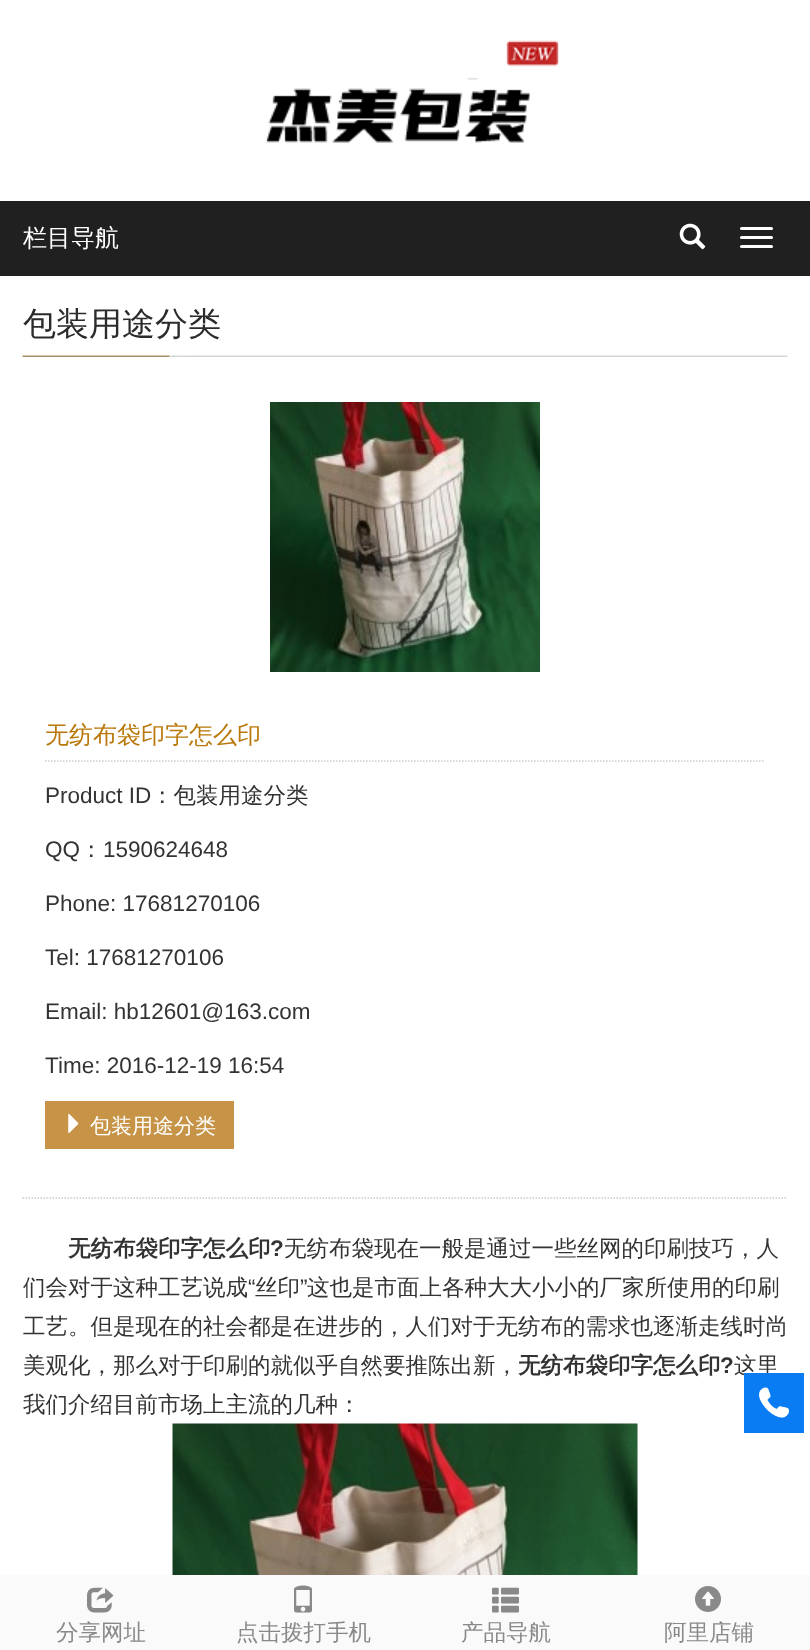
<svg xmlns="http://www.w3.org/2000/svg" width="810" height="1650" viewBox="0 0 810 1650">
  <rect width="100%" height="100%" fill="#ffffff"/>
  <image x="265" y="40" width="294" height="103" href="img1.png"/>
  <rect x="0" y="201" width="810" height="75" fill="#202020"/>
  <text x="23" y="246" font-family="WenQuanYi Zen Hei" font-size="24" font-weight="500" fill="#ffffff">栏目导航</text>
  <image x="679" y="223" width="27" height="27" href="img2.png"/>
  <rect x="740" y="227" width="33" height="3" rx="1.5" fill="#ffffff"/>
  <rect x="740" y="236" width="33" height="3" rx="1.5" fill="#ffffff"/>
  <rect x="740" y="245" width="33" height="3" rx="1.5" fill="#ffffff"/>
  <image x="22" y="355" width="766" height="2" href="img3.png"/>
  <text x="23" y="335" font-family="WenQuanYi Zen Hei" font-size="33" font-weight="500" fill="#2c2b2b">包装用途分类</text>
  <image x="270" y="402" width="270" height="270" href="img4.png"/>
  <path d="M45 761H765" fill="none" stroke="#cccccc" stroke-width="1.5" stroke-dasharray="1.5 1.5"/>
  <text x="45" y="743" font-family="WenQuanYi Zen Hei" font-size="24" font-weight="500" fill="#b97809">无纺布袋印字怎么印</text>
  <text x="45" y="803" font-family="Liberation Sans" font-size="22.5" fill="#333333">Product ID</text>
  <text x="151" y="803" font-family="WenQuanYi Zen Hei" font-size="22.5" font-weight="500" fill="#333333">：包装用途分类</text>
  <text x="45" y="857" font-family="Liberation Sans" font-size="22.5" fill="#333333">QQ</text>
  <text x="80" y="857" font-family="WenQuanYi Zen Hei" font-size="22.5" font-weight="500" fill="#333333">：</text>
  <text x="103" y="857" font-family="Liberation Sans" font-size="22.5" fill="#333333">1590624648</text>
  <text x="45" y="911" font-family="Liberation Sans" font-size="22.5" fill="#333333">Phone: 17681270106</text>
  <text x="45" y="965" font-family="Liberation Sans" font-size="22.5" fill="#333333">Tel: 17681270106</text>
  <text x="45" y="1019" font-family="Liberation Sans" font-size="22.5" fill="#333333">Email: hb12601@163.com</text>
  <text x="45" y="1073" font-family="Liberation Sans" font-size="22.5" fill="#333333">Time: 2016-12-19 16:54</text>
  <rect x="45" y="1101" width="189" height="48" fill="#c79447"/>
  <image x="68" y="1113" width="11" height="21" href="img5.png"/>
  <text x="90" y="1133" font-family="WenQuanYi Zen Hei" font-size="21" font-weight="500" fill="#ffffff">包装用途分类</text>
  <path d="M22.5 1198H787.5" fill="none" stroke="#cccccc" stroke-width="1.5" stroke-dasharray="1.5 1.5"/>
  <text x="68" y="1256" font-family="WenQuanYi Zen Hei" font-size="22.5" font-weight="bold" fill="#333333">无纺布袋印字怎么印</text>
  <text x="270" y="1256" font-family="Liberation Sans" font-size="22.5" font-weight="bold" fill="#333333">?</text>
  <text x="284" y="1256" font-family="WenQuanYi Zen Hei" font-size="22.5" font-weight="500" fill="#333333">无纺布袋现在一般是通过一些丝网的印刷技巧，人</text>
  <text x="23" y="1295" font-family="WenQuanYi Zen Hei" font-size="22.5" font-weight="500" fill="#333333">们会对于这种工艺说成</text>
  <text x="248" y="1295" font-family="Liberation Sans" font-size="22.5" fill="#333333">“</text>
  <text x="255" y="1295" font-family="WenQuanYi Zen Hei" font-size="22.5" font-weight="500" fill="#333333">丝印</text>
  <text x="300" y="1295" font-family="Liberation Sans" font-size="22.5" fill="#333333">”</text>
  <text x="307" y="1295" font-family="WenQuanYi Zen Hei" font-size="22.5" font-weight="500" fill="#333333">这也是市面上各种大大小小的厂家所使用的印刷</text>
  <text x="23" y="1334" font-family="WenQuanYi Zen Hei" font-size="22.5" font-weight="500" fill="#333333">工艺。但是现在的社会都是在进步的，人们对于无纺布的需求也逐渐走线时尚</text>
  <text x="23" y="1373" font-family="WenQuanYi Zen Hei" font-size="22.5" font-weight="500" fill="#333333">美观化，那么对于印刷的就似乎自然要推陈出新，</text>
  <text x="518" y="1373" font-family="WenQuanYi Zen Hei" font-size="22.5" font-weight="bold" fill="#333333">无纺布袋印字怎么印</text>
  <text x="720" y="1373" font-family="Liberation Sans" font-size="22.5" font-weight="bold" fill="#333333">?</text>
  <text x="734" y="1373" font-family="WenQuanYi Zen Hei" font-size="22.5" font-weight="500" fill="#333333">这里</text>
  <text x="23" y="1412" font-family="WenQuanYi Zen Hei" font-size="22.5" font-weight="500" fill="#333333">我们介绍目前市场上主流的几种：</text>
  <image x="172" y="1423" width="466" height="152" href="img6.png"/>
  <rect x="744" y="1373" width="60" height="60" fill="#097cf3"/>
  <image x="759" y="1387" width="30" height="31" href="img7.png"/>
  <rect x="0" y="1575" width="810" height="75" fill="#fafafa"/>
  <image x="87" y="1587" width="27" height="26" href="img8.png"/>
  <text x="56" y="1640" font-family="WenQuanYi Zen Hei" font-size="22.5" font-weight="500" fill="#898989">分享网址</text>
  <image x="294" y="1585" width="18" height="28" href="img9.png"/>
  <text x="236" y="1640" font-family="WenQuanYi Zen Hei" font-size="22.5" font-weight="500" fill="#898989">点击拨打手机</text>
  <image x="492" y="1587" width="27" height="26" href="img10.png"/>
  <text x="461" y="1640" font-family="WenQuanYi Zen Hei" font-size="22.5" font-weight="500" fill="#898989">产品导航</text>
  <image x="695" y="1586" width="26" height="26" href="img11.png"/>
  <text x="664" y="1640" font-family="WenQuanYi Zen Hei" font-size="22.5" font-weight="500" fill="#898989">阿里店铺</text>
</svg>
